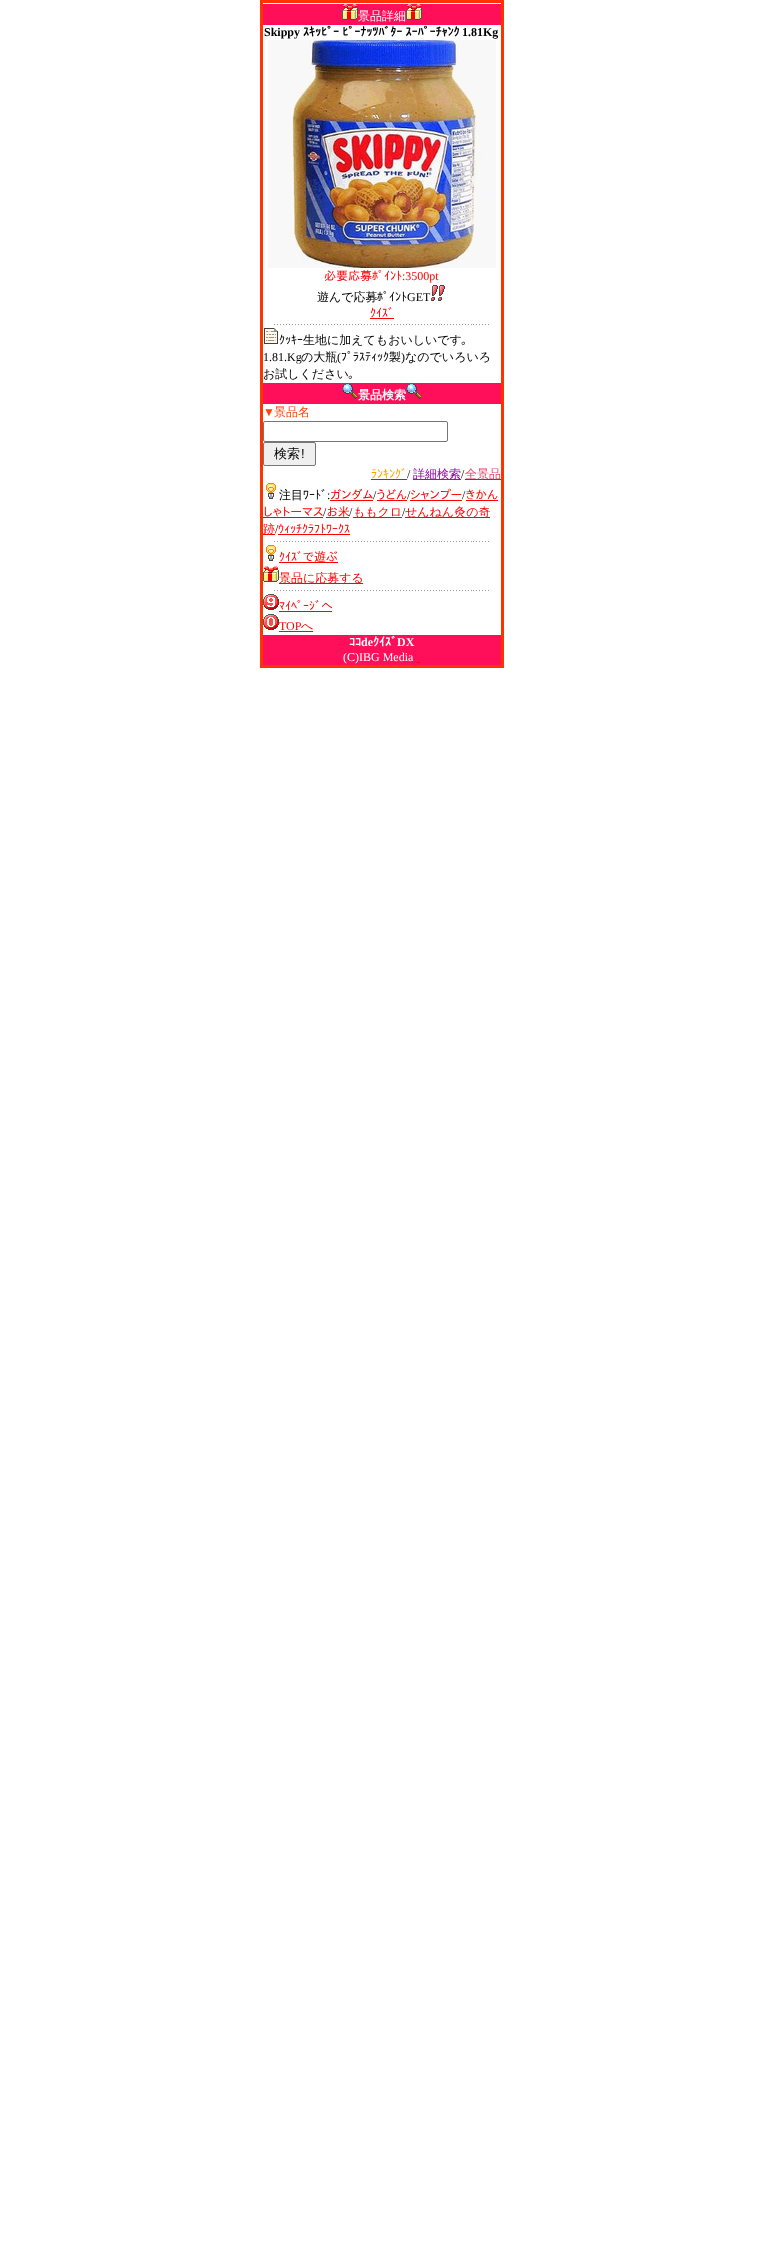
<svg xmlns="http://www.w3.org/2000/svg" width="763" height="2251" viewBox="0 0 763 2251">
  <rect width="100%" height="100%" fill="#ffffff"/>
  <rect x="261.5" y="1.5" width="241" height="665" fill="none" stroke="#ff3300" stroke-width="3"/>
  <rect x="263" y="4" width="238" height="21" fill="#ff0f59"/>
  <image x="342" y="4" width="16" height="16" href="img1.png"/>
  <text x="358" y="20" font-family="WenQuanYi Zen Hei" font-size="12" font-weight="500" fill="#ffffff">景品詳細</text>
  <image x="406" y="4" width="16" height="16" href="img1.png"/>
  <text x="264" y="36" font-family="Liberation Serif" font-size="12" font-weight="bold" fill="#000000">Skippy</text>
  <text x="303" y="36" font-family="IPAPGothic" font-size="12" font-weight="bold" fill="#000000">ｽｷｯﾋﾟｰ ﾋﾟｰﾅｯﾂﾊﾞﾀｰ ｽｰﾊﾟｰﾁｬﾝｸ</text>
  <text x="462" y="36" font-family="Liberation Serif" font-size="12" font-weight="bold" fill="#000000">1.81Kg</text>
  <image x="268" y="40" width="228" height="228" href="img2.png"/>
  <text x="324" y="280" font-family="IPAPGothic" font-size="12" fill="#ff0000">必要応募ﾎﾟｲﾝﾄ</text>
  <text x="402" y="280" font-family="Liberation Serif" font-size="12" fill="#ff0000">:3500pt</text>
  <text x="317" y="301" font-family="WenQuanYi Zen Hei" font-size="12" font-weight="500" fill="#000000">遊んで応募</text>
  <text x="377" y="301" font-family="IPAPGothic" font-size="12" fill="#000000">ﾎﾟｲﾝﾄ</text>
  <text x="407" y="301" font-family="Liberation Serif" font-size="12" fill="#000000">GET</text>
  <image x="431" y="285" width="14" height="16" href="img3.png"/>
  <text x="370" y="317" font-family="IPAPGothic" font-size="12" fill="#ff0000">ｸｲｽﾞ</text>
  <rect x="370" y="318" width="24" height="1" fill="#ff0000"/>
  <image x="274" y="324" width="215" height="1" href="img4.png"/>
  <image x="264" y="328" width="14" height="16" href="img5.png"/>
  <text x="279" y="344" font-family="IPAPGothic" font-size="12" fill="#000000">ｸｯｷｰ</text>
  <text x="303" y="344" font-family="WenQuanYi Zen Hei" font-size="12" font-weight="500" fill="#000000">生地に加えてもおいしいです</text>
  <text x="461" y="344" font-family="IPAPGothic" font-size="12" fill="#000000">｡</text>
  <text x="263" y="361" font-family="Liberation Serif" font-size="12" fill="#000000">1.81.Kg</text>
  <text x="301" y="361" font-family="WenQuanYi Zen Hei" font-size="12" font-weight="500" fill="#000000">の大瓶</text>
  <text x="337" y="361" font-family="Liberation Serif" font-size="12" fill="#000000">(</text>
  <text x="341" y="361" font-family="IPAPGothic" font-size="12" fill="#000000">ﾌﾟﾗｽﾃｨｯｸ</text>
  <text x="389" y="361" font-family="WenQuanYi Zen Hei" font-size="12" font-weight="500" fill="#000000">製</text>
  <text x="401" y="361" font-family="Liberation Serif" font-size="12" fill="#000000">)</text>
  <text x="405" y="361" font-family="WenQuanYi Zen Hei" font-size="12" font-weight="500" fill="#000000">なのでいろいろ</text>
  <text x="263" y="378" font-family="WenQuanYi Zen Hei" font-size="12" font-weight="500" fill="#000000">お試しください</text>
  <text x="348" y="378" font-family="IPAPGothic" font-size="12" fill="#000000">｡</text>
  <rect x="263" y="383" width="238" height="21" fill="#ff0f59"/>
  <image x="342" y="383" width="16" height="16" href="img6.png"/>
  <text x="358" y="399" font-family="WenQuanYi Zen Hei" font-size="12" font-weight="bold" fill="#ffffff">景品検索</text>
  <image x="406" y="383" width="16" height="16" href="img6.png"/>
  <text x="263" y="416" font-family="Liberation Serif" font-size="12" fill="#ff440a">▼</text>
  <text x="274" y="416" font-family="WenQuanYi Zen Hei" font-size="12" font-weight="500" fill="#ff440a">景品名</text>
  <rect x="263.5" y="421.5" width="184" height="20" rx="1.5" fill="none" stroke="#767676"/>
  <rect x="263.5" y="442.5" width="52" height="23" rx="1.5" fill="#efefef" stroke="#767676"/>
  <text x="274" y="458" font-family="WenQuanYi Zen Hei" font-size="13" font-weight="500" fill="#000000">検索</text>
  <text x="301" y="458" font-family="Liberation Sans" font-size="13" fill="#000000">!</text>
  <text x="371" y="478" font-family="IPAPGothic" font-size="12" fill="#fca300">ﾗﾝｷﾝｸﾞ</text>
  <rect x="371" y="479" width="36" height="1" fill="#ff0000"/>
  <text x="407" y="478" font-family="Liberation Serif" font-size="12" fill="#000000">/</text>
  <rect x="413" y="479" width="48" height="1" fill="#ff0000"/>
  <text x="413" y="478" font-family="WenQuanYi Zen Hei" font-size="12" font-weight="500" fill="#9600a8">詳細検索</text>
  <text x="461" y="478" font-family="Liberation Serif" font-size="12" fill="#000000">/</text>
  <rect x="465" y="479" width="36" height="1" fill="#ff0000"/>
  <text x="465" y="478" font-family="WenQuanYi Zen Hei" font-size="12" font-weight="500" fill="#e04470">全景品</text>
  <image x="266" y="483" width="10" height="16" href="img7.png"/>
  <text x="279" y="499" font-family="WenQuanYi Zen Hei" font-size="12" font-weight="500" fill="#000000">注目</text>
  <text x="303" y="499" font-family="IPAPGothic" font-size="12" fill="#000000">ﾜｰﾄﾞ</text>
  <text x="330" y="499" font-family="IPAPGothic" font-size="12" fill="#ff0000">ガンダム うどん</text>
  <rect x="330" y="500" width="43" height="1" fill="#ff0000"/>
  <text x="407" y="499" font-family="Liberation Serif" font-size="12" fill="#000000">/</text>
  <text x="410" y="499" font-family="IPAPGothic" font-size="12" fill="#ff0000">シャンプー きかん</text>
  <rect x="410" y="500" width="52" height="1" fill="#ff0000"/>
  <text x="327" y="499" font-family="Liberation Serif" font-size="12" fill="#000000">:</text>
  <text x="373" y="499" font-family="Liberation Serif" font-size="12" fill="#000000">/</text>
  <text x="462" y="499" font-family="Liberation Serif" font-size="12" fill="#000000">/</text>
  <rect x="377" y="500" width="30" height="1" fill="#ff0000"/>
  <text x="263" y="516" font-family="IPAPGothic" font-size="12" fill="#ff0000">しゃトーマス お米</text>
  <rect x="466" y="500" width="32" height="1" fill="#ff0000"/>
  <rect x="263" y="517" width="60" height="1" fill="#ff0000"/>
  <rect x="353" y="517" width="49" height="1" fill="#ff0000"/>
  <text x="353" y="516" font-family="WenQuanYi Zen Hei" font-size="12" font-weight="500" fill="#ff0000">ももクロ</text>
  <rect x="405" y="517" width="85" height="1" fill="#ff0000"/>
  <text x="402" y="516" font-family="Liberation Serif" font-size="12" fill="#000000">/</text>
  <text x="405" y="516" font-family="WenQuanYi Zen Hei" font-size="12" font-weight="500" fill="#ff0000">せんねん灸の奇</text>
  <text x="323" y="516" font-family="Liberation Serif" font-size="12" fill="#000000">/</text>
  <text x="349" y="516" font-family="Liberation Serif" font-size="12" fill="#000000">/</text>
  <rect x="326" y="517" width="23" height="1" fill="#ff0000"/>
  <rect x="263" y="534" width="12" height="1" fill="#ff0000"/>
  <text x="263" y="533" font-family="WenQuanYi Zen Hei" font-size="12" font-weight="500" fill="#ff0000">跡</text>
  <text x="275" y="533" font-family="Liberation Serif" font-size="12" fill="#000000">/</text>
  <text x="278" y="533" font-family="IPAPGothic" font-size="12" fill="#ff0000">ｳｨｯﾁｸﾗﾌﾄﾜｰｸｽ</text>
  <rect x="278" y="534" width="72" height="1" fill="#ff0000"/>
  <image x="274" y="541" width="215" height="1" href="img4.png"/>
  <image x="266" y="545" width="10" height="16" href="img7.png"/>
  <text x="279" y="561" font-family="IPAPGothic" font-size="12" fill="#ff0000">ｸｲｽﾞで遊ぶ</text>
  <rect x="279" y="562" width="59" height="1" fill="#ff0000"/>
  <image x="263" y="566" width="16" height="16" href="img8.png"/>
  <rect x="279" y="583" width="84" height="1" fill="#ff0000"/>
  <text x="279" y="582" font-family="WenQuanYi Zen Hei" font-size="12" font-weight="500" fill="#ff0000">景品に応募する</text>
  <image x="274" y="590" width="215" height="1" href="img4.png"/>
  <image x="263" y="594" width="16" height="16" href="img9.png"/>
  <text x="279" y="610" font-family="IPAPGothic" font-size="12" fill="#ff0000">ﾏｲﾍﾟｰｼﾞへ</text>
  <rect x="279" y="611" width="53" height="1" fill="#ff0000"/>
  <image x="263" y="614" width="16" height="16" href="img10.png"/>
  <text x="279" y="630" font-family="Liberation Serif" font-size="12" fill="#ff0000">TOP</text>
  <text x="301" y="630" font-family="WenQuanYi Zen Hei" font-size="12" font-weight="500" fill="#ff0000">へ</text>
  <rect x="279" y="631" width="34" height="1" fill="#ff0000"/>
  <rect x="263" y="635" width="238" height="30" fill="#ff0f59"/>
  <text x="349" y="646" font-family="IPAPGothic" font-size="12" font-weight="bold" fill="#ffffff">ｺｺ</text>
  <text x="361" y="646" font-family="Liberation Serif" font-size="12" font-weight="bold" fill="#ffffff">de</text>
  <text x="373" y="646" font-family="IPAPGothic" font-size="12" font-weight="bold" fill="#ffffff">ｸｲｽﾞ</text>
  <text x="397" y="646" font-family="Liberation Serif" font-size="12" font-weight="bold" fill="#ffffff">DX</text>
  <text x="343" y="661" font-family="Liberation Serif" font-size="12" fill="#ffffff">(C)IBG Media</text>
  <rect x="417" y="662" width="3" height="1" fill="#ff0000"/>
</svg>
